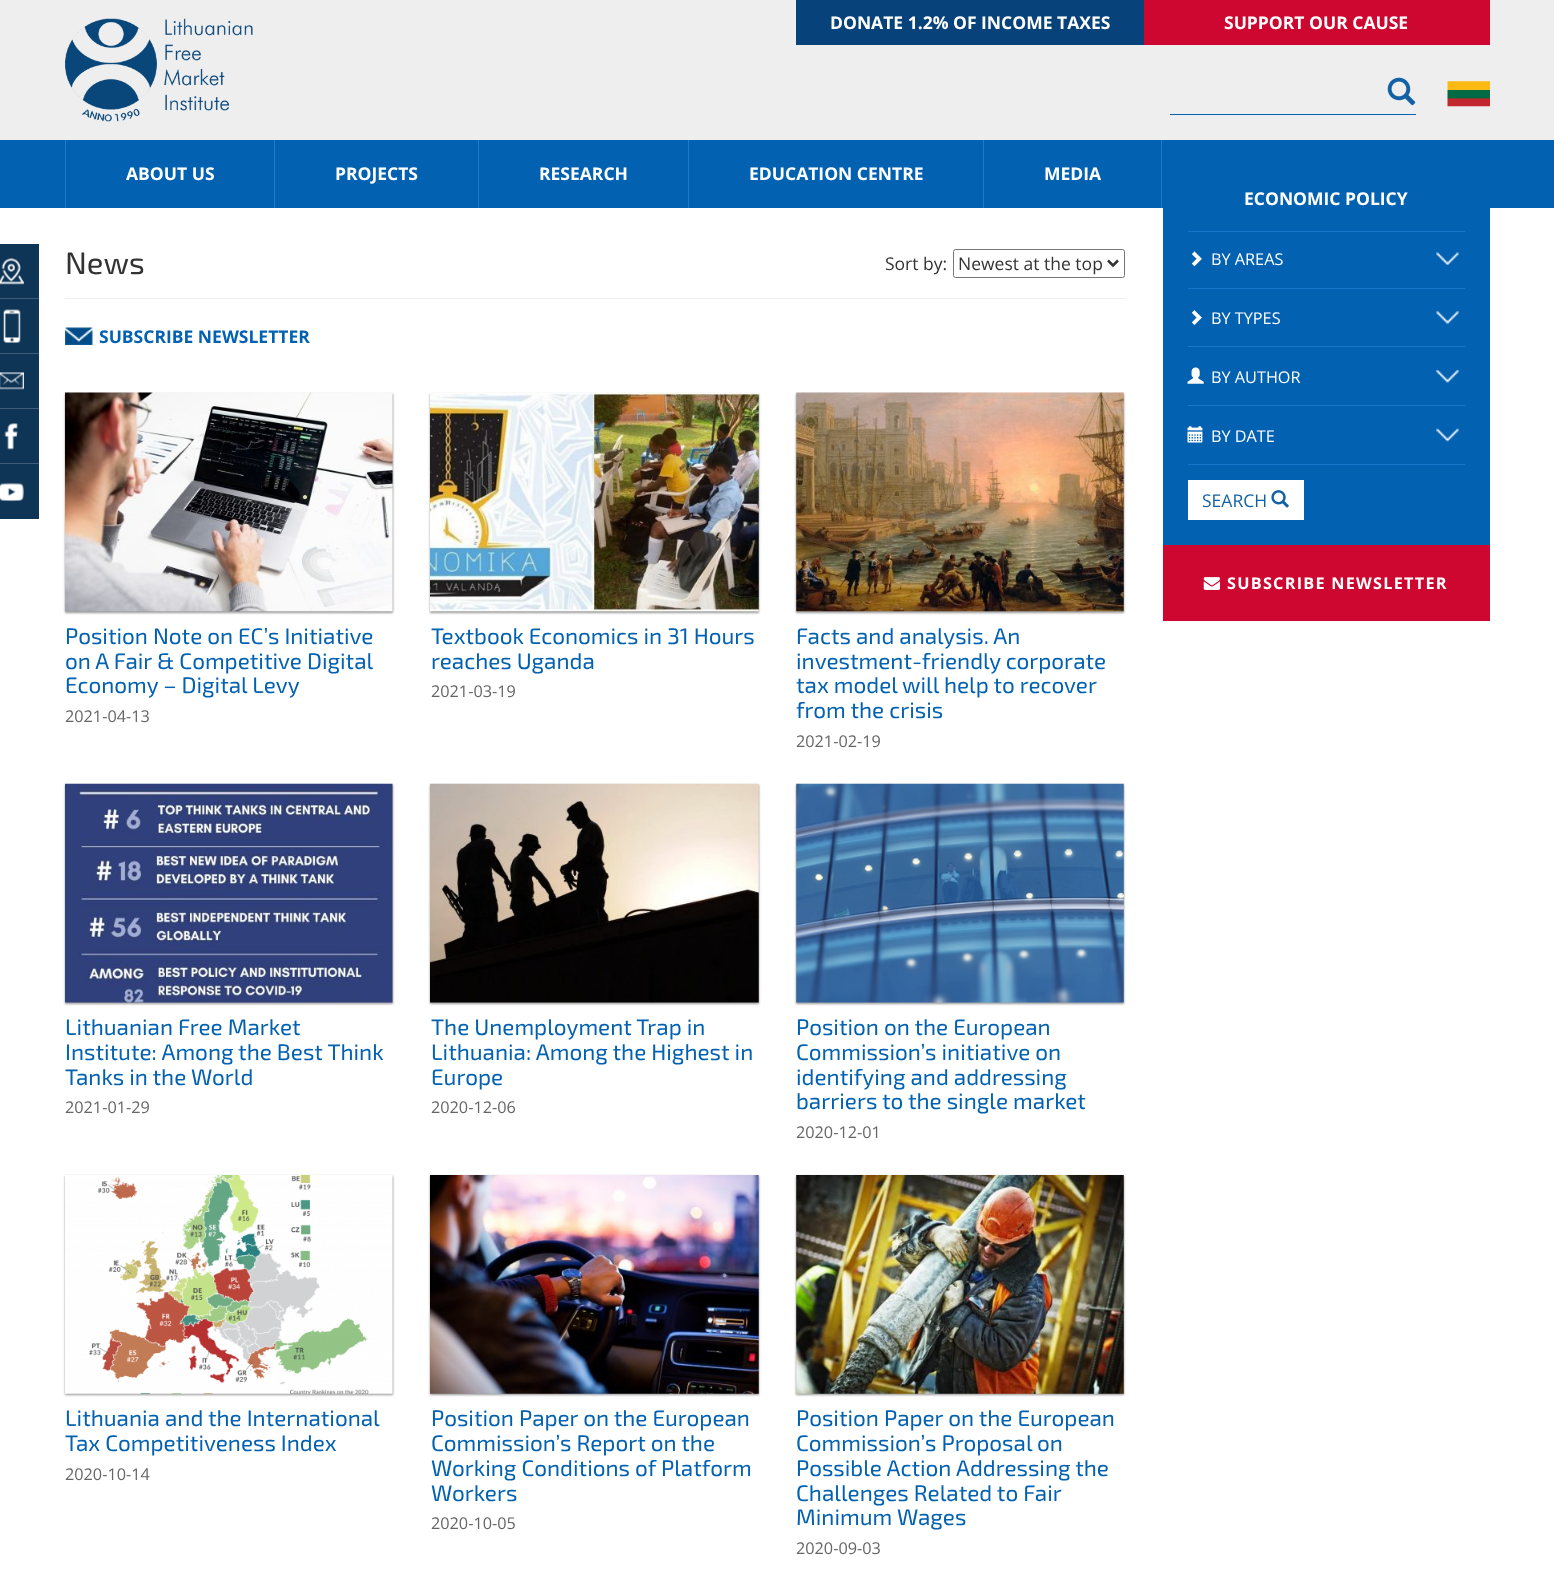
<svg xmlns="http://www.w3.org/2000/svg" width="1554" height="1581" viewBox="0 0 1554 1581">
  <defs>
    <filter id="blur1" x="-50%" y="-200%" width="200%" height="500%"><feGaussianBlur stdDeviation="1"/></filter>
  </defs>
  <rect width="100%" height="100%" fill="#ffffff"/>
  <rect x="0" y="0" width="1554" height="140" fill="#eeeeee"/>
  <image x="65" y="18" width="188" height="104" href="img1.png"/>
  <rect x="796" y="0" width="348" height="45" fill="#08427b"/>
  <text x="830" y="29" font-family="Open Sans" font-size="17.5" font-weight="bold" fill="#ffffff">DONATE 1.2% OF INCOME TAXES</text>
  <rect x="1144" y="0" width="346" height="45" fill="#cd072f"/>
  <text x="1224" y="29" font-family="Open Sans" font-size="17.5" font-weight="bold" fill="#ffffff">SUPPORT OUR CAUSE</text>
  <image x="1387" y="77" width="29" height="29" href="img2.png"/>
  <rect x="1170" y="114" width="246" height="1" fill="#0261b1"/>
  <image x="1447" y="81" width="43" height="26" href="img3.png"/>
  <rect x="0" y="140" width="1554" height="68" fill="#0261b1"/>
  <rect x="65" y="140" width="1" height="68" fill="#1e7ccc"/>
  <text x="126" y="180" font-family="Open Sans" font-size="17.5" font-weight="bold" fill="#ffffff">ABOUT US</text>
  <rect x="274" y="140" width="1" height="68" fill="#1e7ccc"/>
  <text x="335" y="180" font-family="Open Sans" font-size="17.5" font-weight="bold" fill="#ffffff">PROJECTS</text>
  <rect x="478" y="140" width="1" height="68" fill="#1e7ccc"/>
  <text x="539" y="180" font-family="Open Sans" font-size="17.5" font-weight="bold" fill="#ffffff">RESEARCH</text>
  <rect x="688" y="140" width="1" height="68" fill="#1e7ccc"/>
  <text x="749" y="180" font-family="Open Sans" font-size="17.5" font-weight="bold" fill="#ffffff">EDUCATION CENTRE</text>
  <rect x="1161" y="140" width="1" height="68" fill="#1e7ccc"/>
  <rect x="983" y="140" width="1" height="68" fill="#1e7ccc"/>
  <text x="1044" y="180" font-family="Open Sans" font-size="17.5" font-weight="bold" fill="#ffffff">MEDIA</text>
  <rect x="0" y="244" width="39" height="54" fill="#0f3556"/>
  <rect x="0" y="298" width="39" height="1" fill="#3f5d78"/>
  <image x="0" y="258" width="24" height="27" href="img4.png"/>
  <rect x="0" y="299" width="39" height="54" fill="#0f3556"/>
  <rect x="0" y="353" width="39" height="1" fill="#3f5d78"/>
  <image x="3" y="309" width="18" height="34" href="img5.png"/>
  <rect x="0" y="354" width="39" height="54" fill="#0f3556"/>
  <rect x="0" y="408" width="39" height="1" fill="#3f5d78"/>
  <image x="0" y="372" width="24" height="18" href="img6.png"/>
  <rect x="0" y="409" width="39" height="54" fill="#0f3556"/>
  <rect x="0" y="463" width="39" height="1" fill="#3f5d78"/>
  <image x="4" y="423" width="14" height="27" href="img7.png"/>
  <rect x="0" y="464" width="39" height="55" fill="#0f3556"/>
  <image x="0" y="482" width="24" height="20" href="img8.png"/>
  <rect x="65" y="298" width="1060" height="1" fill="#eeeeee"/>
  <text x="65" y="274" font-family="'Exo 2'" font-size="31" fill="#333333">News</text>
  <text x="885" y="270" font-family="Open Sans" font-size="17.5" fill="#333333">Sort by:</text>
  <rect x="953.5" y="249.5" width="171" height="28" rx="2" fill="none" stroke="#767676"/>
  <path d="M1108 260.5L1113 265.5L1118 260.5" fill="none" stroke="#333333" stroke-width="2.5"/>
  <text x="958" y="270" font-family="Open Sans" font-size="17.5" fill="#333333">Newest at the top</text>
  <image x="65" y="327" width="28" height="18" href="img9.png"/>
  <text x="99" y="343" font-family="Open Sans" font-size="17.5" font-weight="bold" fill="#0261b1">SUBSCRIBE NEWSLETTER</text>
  <rect x="65" y="394" width="328" height="219" fill="#000000" fill-opacity="0.4" filter="url(#blur1)"/>
  <image x="65" y="392" width="328" height="220" href="img10.png"/>
  <text x="65" y="644" font-family="'Exo 2'" font-size="22.5" fill="#0261b1">Position Note on EC’s Initiative</text>
  <text x="65" y="669" font-family="'Exo 2'" font-size="22.5" fill="#0261b1">on A Fair &amp; Competitive Digital</text>
  <text x="65" y="693" font-family="'Exo 2'" font-size="22.5" fill="#0261b1">Economy – Digital Levy</text>
  <text x="65" y="722" font-family="Open Sans" font-size="16.25" fill="#666666">2021-04-13</text>
  <rect x="430" y="394" width="329" height="219" fill="#000000" fill-opacity="0.4" filter="url(#blur1)"/>
  <image x="430" y="392" width="329" height="220" href="img11.png"/>
  <text x="431" y="644" font-family="'Exo 2'" font-size="22.5" fill="#0261b1">Textbook Economics in 31 Hours</text>
  <text x="431" y="669" font-family="'Exo 2'" font-size="22.5" fill="#0261b1">reaches Uganda</text>
  <text x="431" y="697" font-family="Open Sans" font-size="16.25" fill="#666666">2021-03-19</text>
  <rect x="796" y="394" width="328" height="219" fill="#000000" fill-opacity="0.4" filter="url(#blur1)"/>
  <image x="796" y="392" width="328" height="220" href="img12.png"/>
  <text x="796" y="644" font-family="'Exo 2'" font-size="22.5" fill="#0261b1">Facts and analysis. An</text>
  <text x="796" y="669" font-family="'Exo 2'" font-size="22.5" fill="#0261b1">investment-friendly corporate</text>
  <text x="796" y="693" font-family="'Exo 2'" font-size="22.5" fill="#0261b1">tax model will help to recover</text>
  <text x="796" y="718" font-family="'Exo 2'" font-size="22.5" fill="#0261b1">from the crisis</text>
  <text x="796" y="747" font-family="Open Sans" font-size="16.25" fill="#666666">2021-02-19</text>
  <rect x="65" y="785" width="328" height="219" fill="#000000" fill-opacity="0.4" filter="url(#blur1)"/>
  <image x="65" y="783" width="328" height="220" href="img13.png"/>
  <text x="65" y="1035" font-family="'Exo 2'" font-size="22.5" fill="#0261b1">Lithuanian Free Market</text>
  <text x="65" y="1060" font-family="'Exo 2'" font-size="22.5" fill="#0261b1">Institute: Among the Best Think</text>
  <text x="65" y="1085" font-family="'Exo 2'" font-size="22.5" fill="#0261b1">Tanks in the World</text>
  <text x="65" y="1113" font-family="Open Sans" font-size="16.25" fill="#666666">2021-01-29</text>
  <rect x="430" y="785" width="329" height="219" fill="#000000" fill-opacity="0.4" filter="url(#blur1)"/>
  <image x="430" y="783" width="329" height="220" href="img14.png"/>
  <text x="431" y="1035" font-family="'Exo 2'" font-size="22.5" fill="#0261b1">The Unemployment Trap in</text>
  <text x="431" y="1060" font-family="'Exo 2'" font-size="22.5" fill="#0261b1">Lithuania: Among the Highest in</text>
  <text x="431" y="1085" font-family="'Exo 2'" font-size="22.5" fill="#0261b1">Europe</text>
  <text x="431" y="1113" font-family="Open Sans" font-size="16.25" fill="#666666">2020-12-06</text>
  <rect x="796" y="785" width="328" height="219" fill="#000000" fill-opacity="0.4" filter="url(#blur1)"/>
  <image x="796" y="783" width="328" height="220" href="img15.png"/>
  <text x="796" y="1035" font-family="'Exo 2'" font-size="22.5" fill="#0261b1">Position on the European</text>
  <text x="796" y="1060" font-family="'Exo 2'" font-size="22.5" fill="#0261b1">Commission’s initiative on</text>
  <text x="796" y="1085" font-family="'Exo 2'" font-size="22.5" fill="#0261b1">identifying and addressing</text>
  <text x="796" y="1109" font-family="'Exo 2'" font-size="22.5" fill="#0261b1">barriers to the single market</text>
  <text x="796" y="1138" font-family="Open Sans" font-size="16.25" fill="#666666">2020-12-01</text>
  <rect x="65" y="1176" width="328" height="219" fill="#000000" fill-opacity="0.4" filter="url(#blur1)"/>
  <image x="65" y="1175" width="328" height="219" href="img16.png"/>
  <text x="65" y="1426" font-family="'Exo 2'" font-size="22.5" fill="#0261b1">Lithuania and the International</text>
  <text x="65" y="1451" font-family="'Exo 2'" font-size="22.5" fill="#0261b1">Tax Competitiveness Index</text>
  <text x="65" y="1480" font-family="Open Sans" font-size="16.25" fill="#666666">2020-10-14</text>
  <rect x="430" y="1176" width="329" height="219" fill="#000000" fill-opacity="0.4" filter="url(#blur1)"/>
  <image x="430" y="1175" width="329" height="219" href="img17.png"/>
  <text x="431" y="1426" font-family="'Exo 2'" font-size="22.5" fill="#0261b1">Position Paper on the European</text>
  <text x="431" y="1451" font-family="'Exo 2'" font-size="22.5" fill="#0261b1">Commission’s Report on the</text>
  <text x="431" y="1476" font-family="'Exo 2'" font-size="22.5" fill="#0261b1">Working Conditions of Platform</text>
  <text x="431" y="1501" font-family="'Exo 2'" font-size="22.5" fill="#0261b1">Workers</text>
  <text x="431" y="1529" font-family="Open Sans" font-size="16.25" fill="#666666">2020-10-05</text>
  <rect x="796" y="1176" width="328" height="219" fill="#000000" fill-opacity="0.4" filter="url(#blur1)"/>
  <image x="796" y="1175" width="328" height="219" href="img18.png"/>
  <text x="796" y="1426" font-family="'Exo 2'" font-size="22.5" fill="#0261b1">Position Paper on the European</text>
  <text x="796" y="1451" font-family="'Exo 2'" font-size="22.5" fill="#0261b1">Commission’s Proposal on</text>
  <text x="796" y="1476" font-family="'Exo 2'" font-size="22.5" fill="#0261b1">Possible Action Addressing the</text>
  <text x="796" y="1501" font-family="'Exo 2'" font-size="22.5" fill="#0261b1">Challenges Related to Fair</text>
  <text x="796" y="1525" font-family="'Exo 2'" font-size="22.5" fill="#0261b1">Minimum Wages</text>
  <text x="796" y="1554" font-family="Open Sans" font-size="16.25" fill="#666666">2020-09-03</text>
  <rect x="1163" y="208" width="327" height="337" fill="#0261b1"/>
  <rect x="1188" y="231" width="277" height="1" fill="#1477cb"/>
  <text x="1244" y="205" font-family="Open Sans" font-size="17.5" font-weight="bold" fill="#ffffff">ECONOMIC POLICY</text>
  <rect x="1188" y="288" width="277" height="1" fill="#1477cb"/>
  <image x="1191" y="251" width="11" height="16" href="img19.png"/>
  <text x="1211" y="265" font-family="Open Sans" font-size="16.25" fill="#ffffff">BY AREAS</text>
  <image x="1436" y="252" width="23" height="13" href="img20.png"/>
  <rect x="1188" y="346" width="277" height="1" fill="#1477cb"/>
  <image x="1191" y="310" width="11" height="15" href="img21.png"/>
  <text x="1211" y="324" font-family="Open Sans" font-size="16.25" fill="#ffffff">BY TYPES</text>
  <image x="1436" y="311" width="23" height="13" href="img22.png"/>
  <rect x="1188" y="405" width="277" height="1" fill="#1477cb"/>
  <image x="1187" y="367" width="17" height="17" href="img23.png"/>
  <text x="1211" y="383" font-family="Open Sans" font-size="16.25" fill="#ffffff">BY AUTHOR</text>
  <image x="1436" y="370" width="23" height="13" href="img24.png"/>
  <rect x="1188" y="464" width="277" height="1" fill="#1477cb"/>
  <image x="1187" y="426" width="16" height="17" href="img25.png"/>
  <text x="1211" y="442" font-family="Open Sans" font-size="16.25" fill="#ffffff">BY DATE</text>
  <image x="1436" y="428" width="23" height="14" href="img26.png"/>
  <rect x="1188" y="480" width="116" height="40" fill="#ffffff"/>
  <text x="1202" y="507" font-family="Open Sans" font-size="17.5" fill="#1261a5">SEARCH</text>
  <image x="1271" y="490" width="18" height="18" href="img27.png"/>
  <rect x="1163" y="545" width="327" height="76" fill="#cd072f"/>
  <image x="1203" y="577" width="17" height="13" href="img28.png"/>
  <text x="1227" y="589" font-family="Open Sans" font-size="16.25" font-weight="bold" letter-spacing="1.25" fill="#ffffff">SUBSCRIBE NEWSLETTER</text>
</svg>
